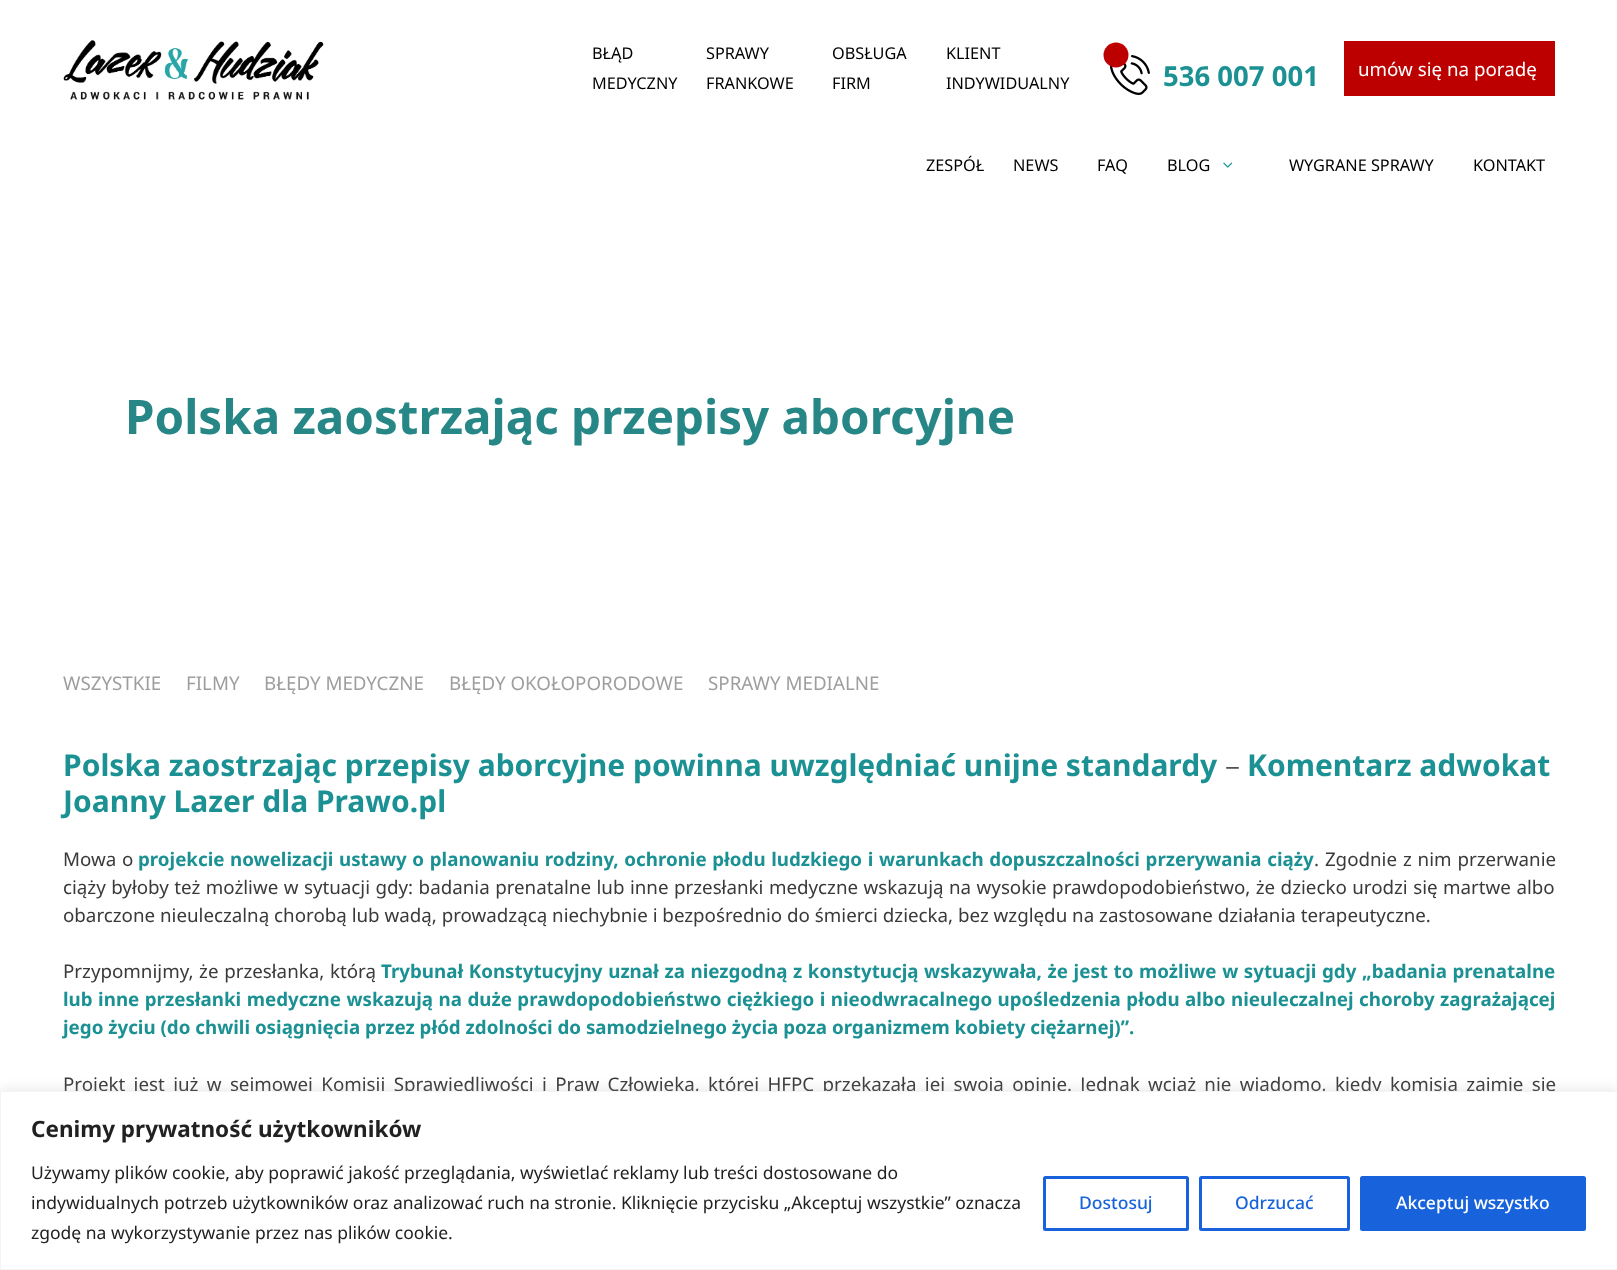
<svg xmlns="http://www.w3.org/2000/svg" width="1617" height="1270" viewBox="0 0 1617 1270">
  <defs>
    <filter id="blur1" x="-50%" y="-200%" width="200%" height="500%"><feGaussianBlur stdDeviation="6"/></filter>
  </defs>
  <rect width="100%" height="100%" fill="#ffffff"/>
  <image x="63" y="40" width="261" height="60" href="img1.png"/>
  <text x="592" y="59" font-family="Noto Sans" font-size="16.25" fill="#000000">BŁĄD</text>
  <text x="592" y="89" font-family="Noto Sans" font-size="16.25" fill="#000000">MEDYCZNY</text>
  <text x="706" y="59" font-family="Noto Sans" font-size="16.25" fill="#000000">SPRAWY</text>
  <text x="706" y="89" font-family="Noto Sans" font-size="16.25" fill="#000000">FRANKOWE</text>
  <text x="832" y="59" font-family="Noto Sans" font-size="16.25" fill="#000000">OBSŁUGA</text>
  <text x="832" y="89" font-family="Noto Sans" font-size="16.25" fill="#000000">FIRM</text>
  <text x="946" y="59" font-family="Noto Sans" font-size="16.25" fill="#000000">KLIENT</text>
  <text x="946" y="89" font-family="Noto Sans" font-size="16.25" fill="#000000">INDYWIDUALNY</text>
  <image x="1110" y="55" width="40" height="40" href="img2.png"/>
  <circle cx="1116" cy="55" r="12.5" fill="#bc0000"/>
  <text x="1163" y="86" font-family="Noto Sans" font-size="27.5" font-weight="bold" fill="#1c9193">536 007 001</text>
  <rect x="1344" y="41" width="211" height="55" fill="#bc0000"/>
  <text x="1358" y="76" font-family="Noto Sans" font-size="18.75" fill="#ffffff">umów się na poradę</text>
  <text x="926" y="171" font-family="Noto Sans" font-size="16.25" fill="#000000">ZESPÓŁ</text>
  <text x="1013" y="171" font-family="Noto Sans" font-size="16.25" fill="#000000">NEWS</text>
  <text x="1097" y="171" font-family="Noto Sans" font-size="16.25" fill="#000000">FAQ</text>
  <text x="1167" y="171" font-family="Noto Sans" font-size="16.25" fill="#000000">BLOG</text>
  <image x="1223" y="162" width="10" height="6" href="img3.png"/>
  <text x="1289" y="171" font-family="Noto Sans" font-size="16.25" fill="#000000">WYGRANE SPRAWY</text>
  <text x="1473" y="171" font-family="Noto Sans" font-size="16.25" fill="#000000">KONTAKT</text>
  <text x="125" y="434" font-family="Noto Sans" font-size="47.5" font-weight="bold" fill="#278787">Polska zaostrzając przepisy aborcyjne</text>
  <text x="63" y="690" font-family="Noto Sans" font-size="18.75" fill="#9e9e9e">WSZYSTKIE</text>
  <text x="186" y="690" font-family="Noto Sans" font-size="18.75" fill="#9e9e9e">FILMY</text>
  <text x="264" y="690" font-family="Noto Sans" font-size="18.75" fill="#9e9e9e">BŁĘDY MEDYCZNE</text>
  <text x="449" y="690" font-family="Noto Sans" font-size="18.75" fill="#9e9e9e">BŁĘDY OKOŁOPORODOWE</text>
  <text x="708" y="690" font-family="Noto Sans" font-size="18.75" fill="#9e9e9e">SPRAWY MEDIALNE</text>
  <text x="63" y="776" font-family="Noto Sans" font-size="30" font-weight="bold" fill="#1c9193">Polska zaostrzając przepisy aborcyjne powinna uwzględniać unijne standardy</text>
  <text x="1225" y="776" font-family="Noto Sans" font-size="30" font-weight="300" fill="#3a3a3a">–</text>
  <text x="1247" y="776" font-family="Noto Sans" font-size="30" font-weight="bold" fill="#1c9193">Komentarz adwokat</text>
  <text x="63" y="812" font-family="Noto Sans" font-size="30" font-weight="bold" fill="#1c9193">Joanny Lazer dla Prawo.pl</text>
  <text x="63" y="866" word-spacing="1" font-family="Noto Sans" font-size="18.75" fill="#3a3a3a">Mowa o</text>
  <text x="138" y="866" word-spacing="0.75" font-family="Noto Sans" font-size="18.75" font-weight="bold" fill="#1c9193">projekcie nowelizacji ustawy o planowaniu rodziny, ochronie płodu ludzkiego i warunkach dopuszczalności przerywania ciąży</text>
  <text x="1314" y="866" word-spacing="1" font-family="Noto Sans" font-size="18.75" fill="#3a3a3a">. Zgodnie z nim przerwanie</text>
  <text x="63" y="894" word-spacing="0.6" font-family="Noto Sans" font-size="18.75" fill="#3a3a3a">ciąży byłoby też możliwe w sytuacji gdy: badania prenatalne lub inne przesłanki medyczne wskazują na wysokie prawdopodobieństwo, że dziecko urodzi się martwe albo</text>
  <text x="63" y="922" font-family="Noto Sans" font-size="18.75" fill="#3a3a3a">obarczone nieuleczalną chorobą lub wadą, prowadzącą niechybnie i bezpośrednio do śmierci dziecka, bez względu na zastosowane działania terapeutyczne.</text>
  <text x="63" y="978" word-spacing="0.75" font-family="Noto Sans" font-size="18.75" fill="#3a3a3a">Przypomnijmy, że przesłanka, którą</text>
  <text x="381" y="978" word-spacing="0.75" font-family="Noto Sans" font-size="18.75" font-weight="bold" fill="#1c9193">Trybunał Konstytucyjny uznał za niezgodną z konstytucją wskazywała, że jest to możliwe w sytuacji gdy „badania prenatalne</text>
  <text x="63" y="1006" word-spacing="0.6" font-family="Noto Sans" font-size="18.75" font-weight="bold" fill="#1c9193">lub inne przesłanki medyczne wskazują na duże prawdopodobieństwo ciężkiego i nieodwracalnego upośledzenia płodu albo nieuleczalnej choroby zagrażającej</text>
  <text x="63" y="1034" font-family="Noto Sans" font-size="18.75" font-weight="bold" fill="#1c9193">jego życiu (do chwili osiągnięcia przez płód zdolności do samodzielnego życia poza organizmem kobiety ciężarnej)”.</text>
  <text x="63" y="1091" word-spacing="3.5" font-family="Noto Sans" font-size="18.75" fill="#3a3a3a">Projekt jest już w sejmowej Komisji Sprawiedliwości i Praw Człowieka, której HFPC przekazała jej swoją opinie. Jednak wciąż nie wiadomo, kiedy komisja zajmie się</text>
  <rect x="0" y="1090" width="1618" height="179" fill="#acabab" fill-opacity="0.3" filter="url(#blur1)"/>
  <rect x="0.5" y="1091.5" width="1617" height="178" fill="#ffffff" stroke="#f4f4f4"/>
  <text x="31" y="1137" font-family="Noto Sans" font-size="22.5" font-weight="bold" fill="#212121">Cenimy prywatność użytkowników</text>
  <text x="31" y="1179" font-family="Noto Sans" font-size="17.5" fill="#212121">Używamy plików cookie, aby poprawić jakość przeglądania, wyświetlać reklamy lub treści dostosowane do</text>
  <text x="31" y="1209" font-family="Noto Sans" font-size="17.5" fill="#212121">indywidualnych potrzeb użytkowników oraz analizować ruch na stronie. Kliknięcie przycisku „Akceptuj wszystkie” oznacza</text>
  <text x="31" y="1239" font-family="Noto Sans" font-size="17.5" fill="#212121">zgodę na wykorzystywanie przez nas plików cookie.</text>
  <rect x="1044.5" y="1177.5" width="143" height="52" rx="1" fill="none" stroke="#1863dc" stroke-width="3"/>
  <text x="1079" y="1209" font-family="Noto Sans" font-size="17.5" font-weight="500" fill="#1863dc">Dostosuj</text>
  <rect x="1200.5" y="1177.5" width="148" height="52" rx="1" fill="none" stroke="#1863dc" stroke-width="3"/>
  <text x="1235" y="1209" font-family="Noto Sans" font-size="17.5" font-weight="500" fill="#1863dc">Odrzucać</text>
  <rect x="1361.5" y="1177.5" width="223" height="52" rx="1" fill="#1863dc" stroke="#1863dc" stroke-width="3"/>
  <text x="1396" y="1209" font-family="Noto Sans" font-size="17.5" font-weight="500" fill="#ffffff">Akceptuj wszystko</text>
</svg>
